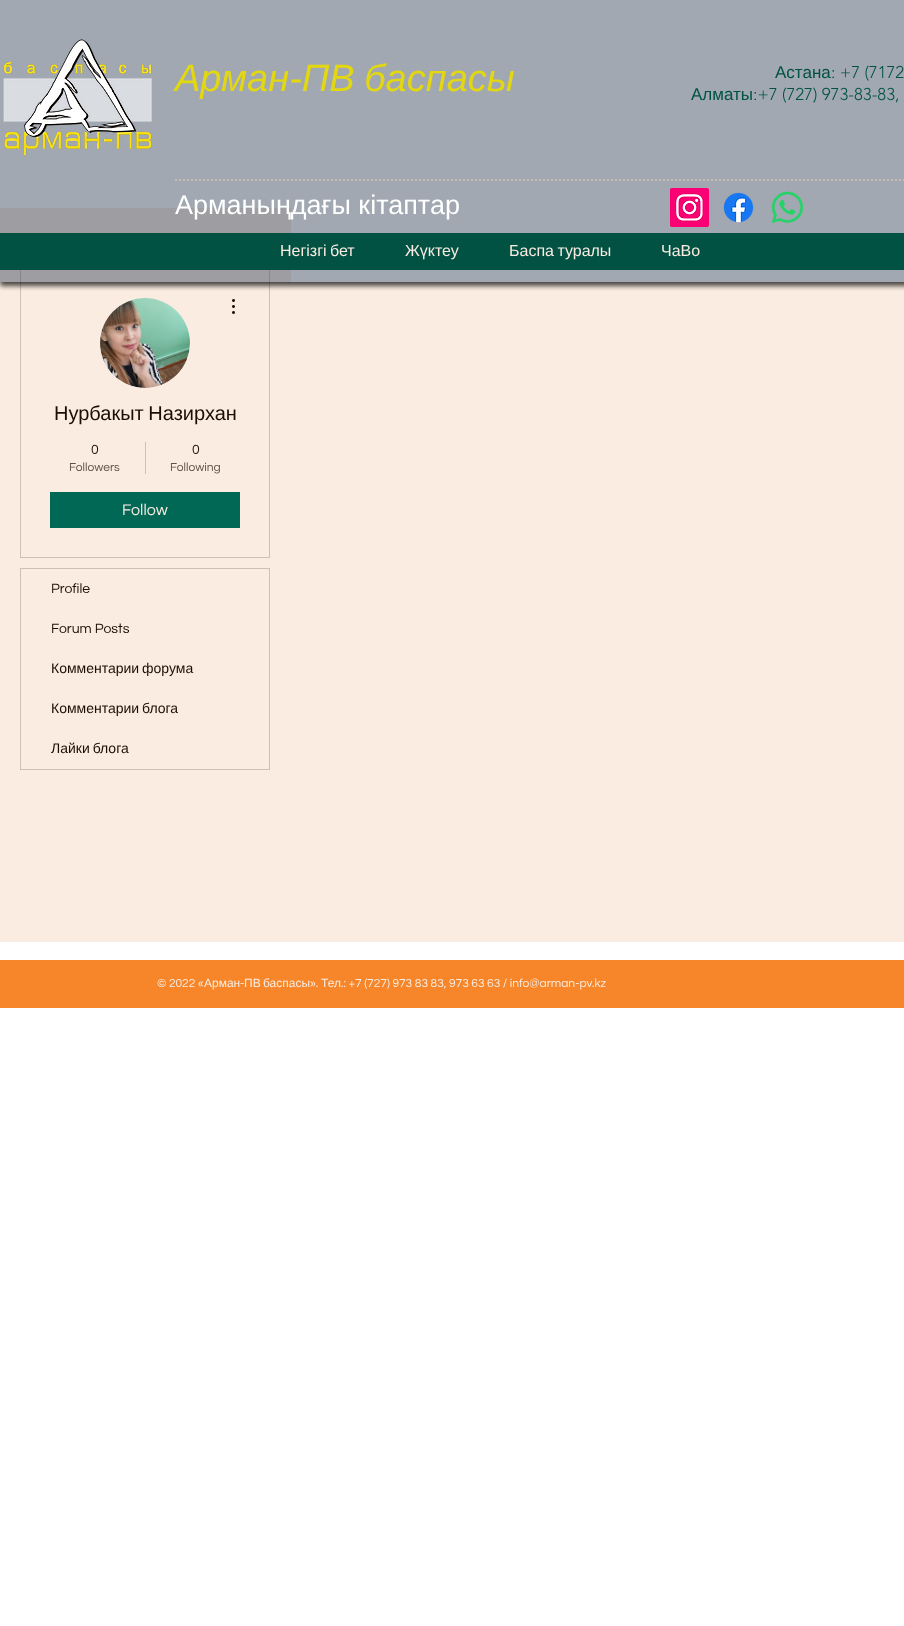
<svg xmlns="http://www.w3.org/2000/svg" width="904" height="1626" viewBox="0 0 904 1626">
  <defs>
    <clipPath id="clip1"><rect x="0" y="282" width="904" height="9"/></clipPath>
    <filter id="blur1" x="-50%" y="-200%" width="200%" height="500%"><feGaussianBlur stdDeviation="2.5"/></filter>
  </defs>
  <rect width="100%" height="100%" fill="#ffffff"/>
  <rect x="0" y="282" width="904" height="660" fill="#faece1"/>
  <rect x="0" y="208" width="291" height="74" fill="#faece1"/>
  <rect x="20.5" y="268.5" width="249" height="289" fill="none" stroke="#cec0b5"/>
  <g clip-path="url(#clip1)">
    <rect x="0" y="4" width="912" height="282" fill="#000000" fill-opacity="0.7" filter="url(#blur1)"/>
  </g>
  <rect x="0" y="0" width="904" height="282" fill="#324158" fill-opacity="0.46"/>
  <image x="3" y="39" width="149" height="117" href="img1.png"/>
  <text x="175" y="91" word-spacing="-1" font-family="Liberation Sans" font-size="38" font-style="italic" fill="#e3d810">Арман-ПВ баспасы</text>
  <text x="775" y="78" font-family="Liberation Sans" font-size="17" fill="#015243">Астана</text>
  <text x="831" y="78" font-family="'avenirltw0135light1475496'" font-size="17" font-weight="300" fill="#015243">: +7 (7172</text>
  <text x="691" y="100" font-family="Liberation Sans" font-size="17" fill="#015243">Алматы</text>
  <text x="753" y="100" font-family="'avenirltw0135light1475496'" font-size="17" font-weight="300" fill="#015243">:+7 (727) 973-83-83,</text>
  <path d="M175 180H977" fill="none" stroke="#c8bdb4" stroke-width="2" stroke-dasharray="2 2"/>
  <text x="175" y="214" font-family="Liberation Sans" font-size="27" fill="#ffffff">Арманыңдағы кітаптар</text>
  <image x="670" y="188" width="39" height="39" href="img2.png"/>
  <image x="723" y="192" width="31" height="31" href="img3.png"/>
  <image x="771" y="191" width="32" height="32" href="img4.png"/>
  <rect x="0" y="233" width="904" height="37" fill="#015243"/>
  <text x="280" y="256" word-spacing="-1" font-family="Liberation Sans" font-size="16" fill="#faece1">Негізгі бет</text>
  <text x="405" y="256" font-family="Liberation Sans" font-size="16" fill="#faece1">Жүктеу</text>
  <text x="509" y="256" word-spacing="-1" font-family="Liberation Sans" font-size="16" fill="#faece1">Баспа туралы</text>
  <text x="661" y="256" font-family="Liberation Sans" font-size="16" fill="#faece1">ЧаВо</text>
  <circle cx="145" cy="343" r="45" fill="#d8d8d8"/>
  <image x="100" y="298" width="90" height="90" href="img5.png"/>
  <image x="232" y="299" width="3" height="15" href="img6.png"/>
  <text x="54" y="420" word-spacing="-1" font-family="Liberation Sans" font-size="20" fill="#1d0e03">Нурбакыт Назирхан</text>
  <text x="91" y="454" font-family="Questrial" font-size="14" fill="#1d0e03">0</text>
  <text x="69" y="471" font-family="Questrial" font-size="12" fill="#5f5146">Followers</text>
  <rect x="145" y="442" width="1" height="32" fill="#cec0b5"/>
  <text x="192" y="454" font-family="Questrial" font-size="14" fill="#1d0e03">0</text>
  <text x="170" y="471" font-family="Questrial" font-size="12" fill="#5f5146">Following</text>
  <rect x="50" y="492" width="190" height="36" fill="#016855"/>
  <text x="122" y="515" font-family="Questrial" font-size="16" fill="#faece1">Follow</text>
  <rect x="20.5" y="568.5" width="249" height="201" fill="none" stroke="#cec0b5"/>
  <text x="51" y="593" font-family="Questrial" font-size="14" fill="#1d0e03">Profile</text>
  <text x="51" y="633" font-family="Questrial" font-size="14" fill="#1d0e03">Forum Posts</text>
  <text x="51" y="673" word-spacing="-1" font-family="Liberation Sans" font-size="14" fill="#1d0e03">Комментарии форума</text>
  <text x="51" y="713" word-spacing="-1" font-family="Liberation Sans" font-size="14" fill="#1d0e03">Комментарии блога</text>
  <text x="51" y="753" word-spacing="-1" font-family="Liberation Sans" font-size="14" fill="#1d0e03">Лайки блога</text>
  <rect x="0" y="960" width="904" height="48" fill="#f68629"/>
  <text x="157" y="987" font-family="Questrial" font-size="12" fill="#faece1">© 2022 «</text>
  <text x="204" y="987" font-family="Liberation Sans" font-size="12" fill="#faece1">Арман</text>
  <text x="240" y="987" font-family="Questrial" font-size="12" fill="#faece1">-</text>
  <text x="244" y="987" font-family="Liberation Sans" font-size="12" fill="#faece1">ПВ</text>
  <text x="263" y="987" font-family="Liberation Sans" font-size="12" fill="#faece1">баспасы</text>
  <text x="310" y="987" font-family="Questrial" font-size="12" fill="#faece1">».</text>
  <text x="321" y="987" font-family="Liberation Sans" font-size="12" fill="#faece1">Тел</text>
  <text x="341" y="987" font-family="Questrial" font-size="12" fill="#faece1">.: +7 (727) 973 83 83, 973 63 63 / info@arman-pv.kz</text>
</svg>
